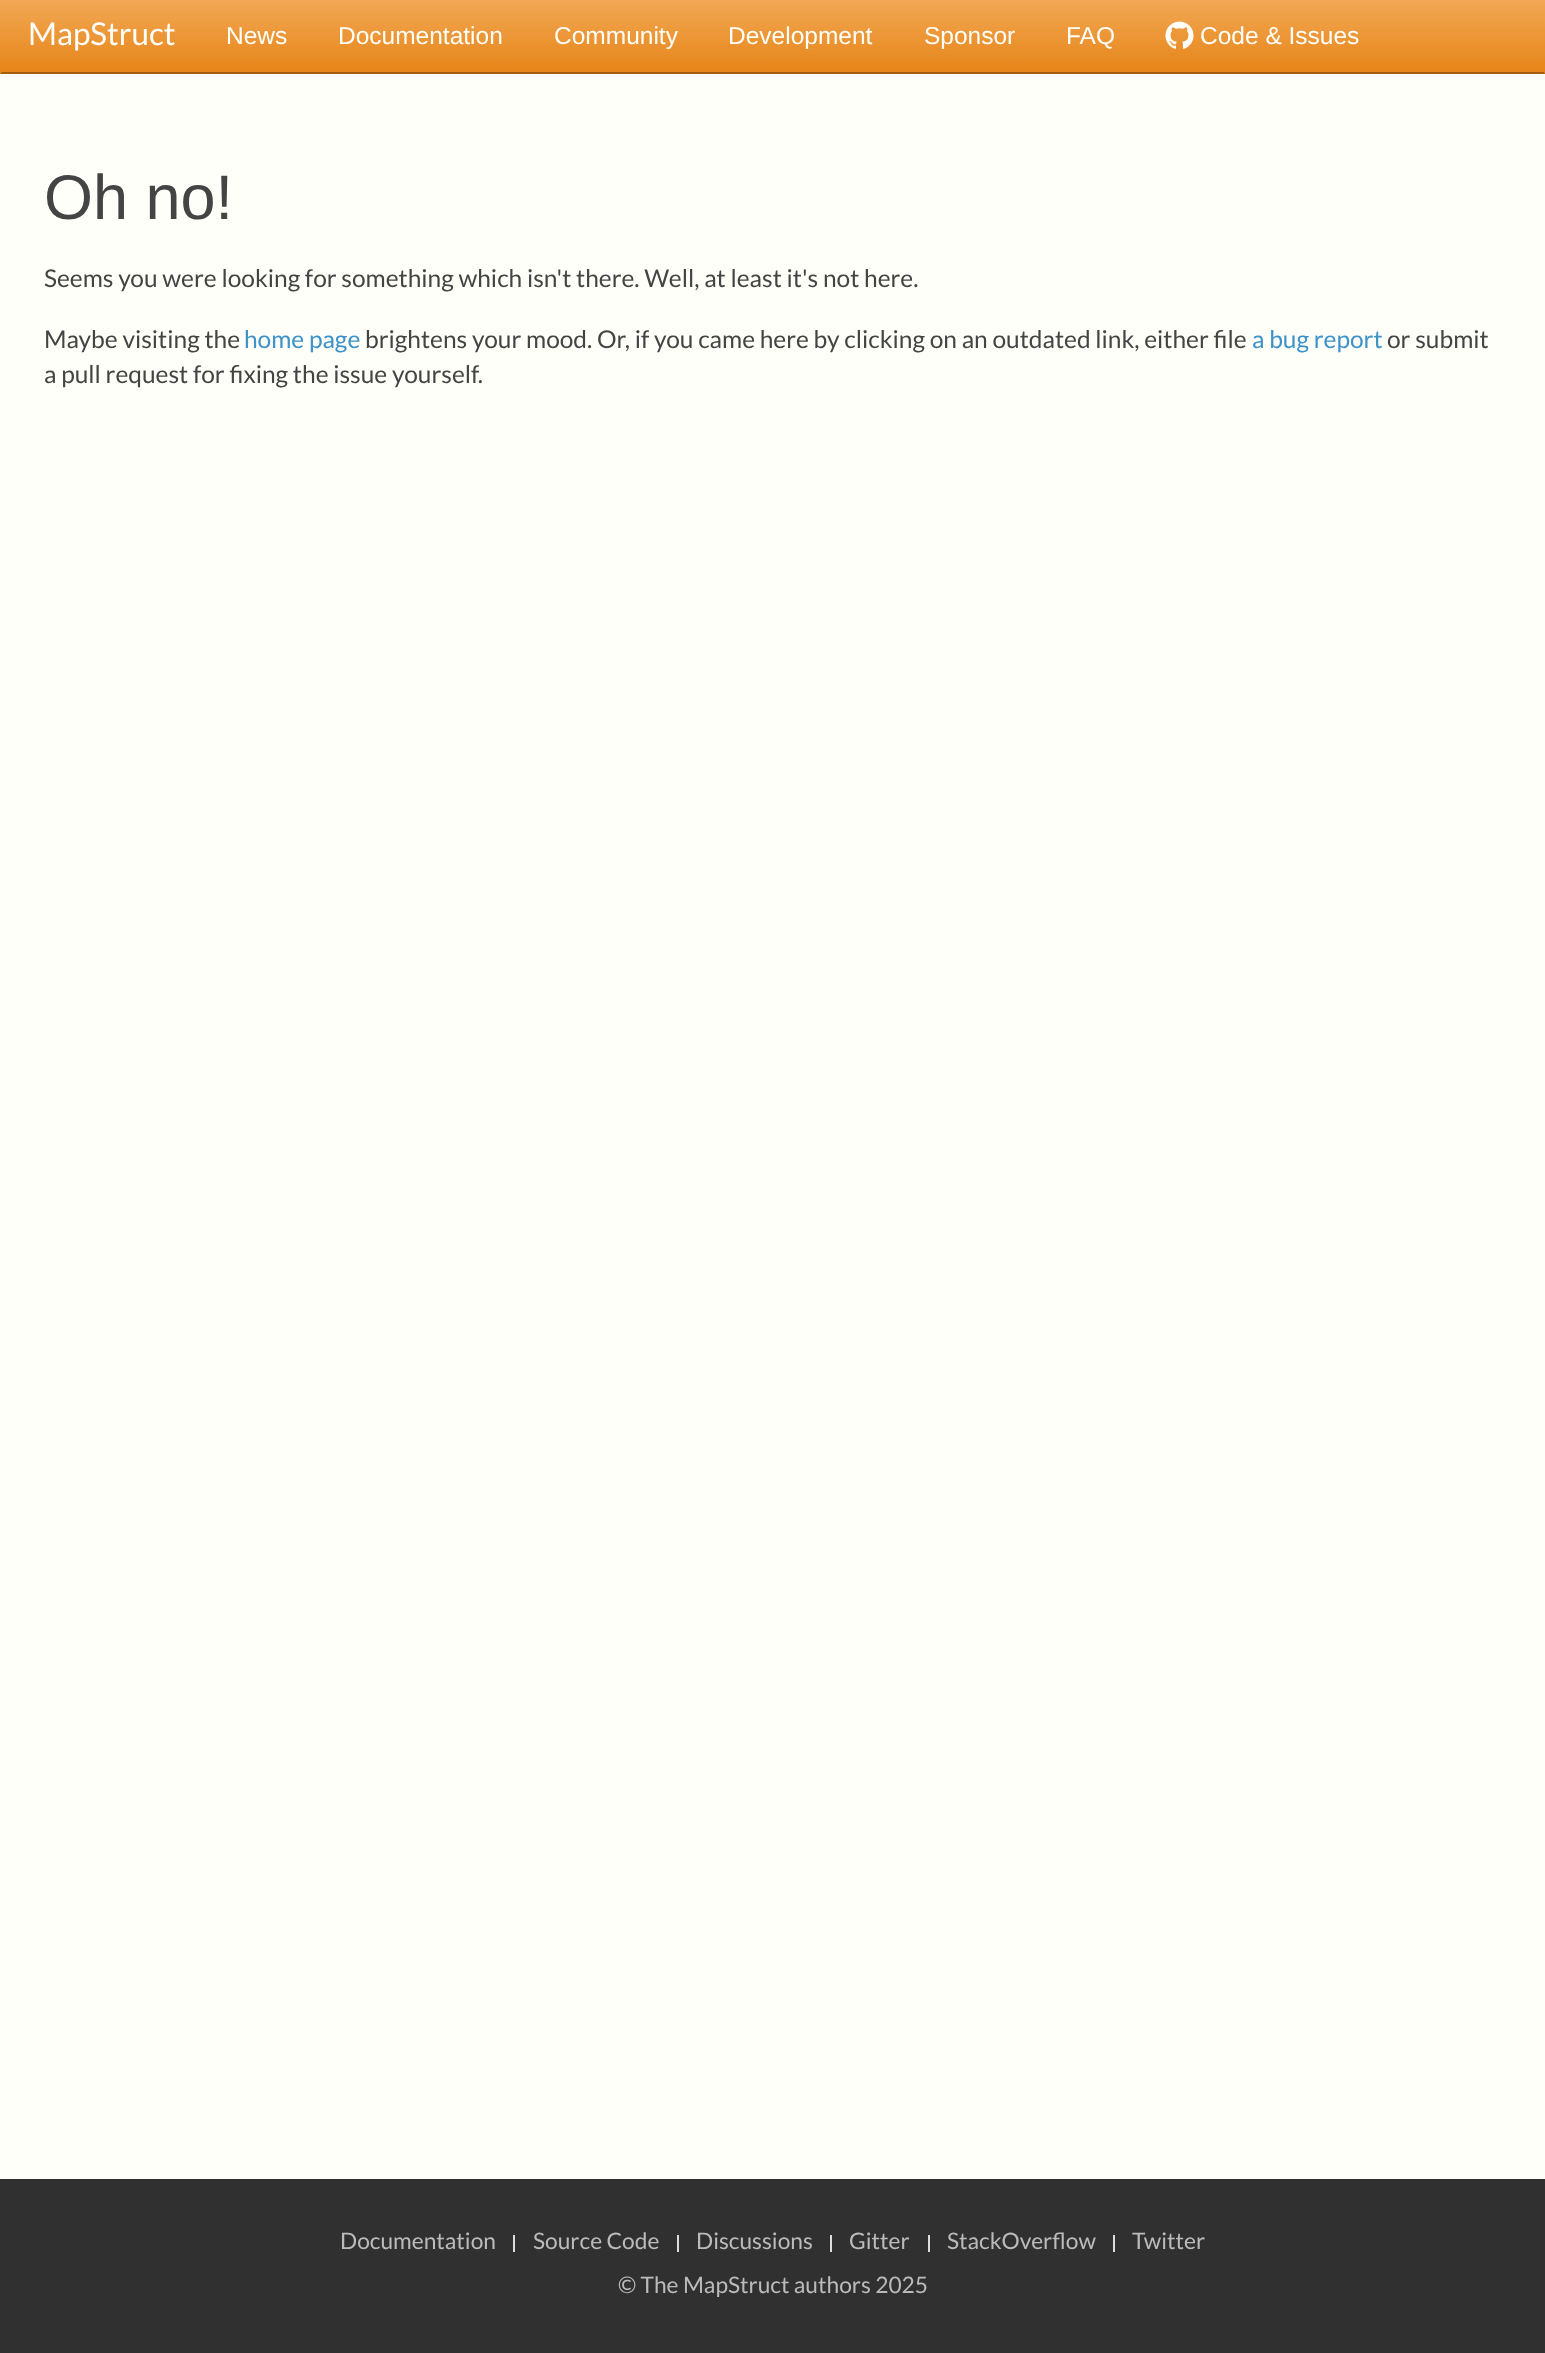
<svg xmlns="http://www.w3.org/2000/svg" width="1545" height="2353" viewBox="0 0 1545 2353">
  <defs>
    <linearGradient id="g1" gradientUnits="userSpaceOnUse" x1="773" y1="0" x2="773" y2="74"><stop offset="0" stop-color="#f2a854"/><stop offset="1" stop-color="#e68417"/></linearGradient>
  </defs>
  <rect width="100%" height="100%" fill="#fffffa"/>
  <rect x="0" y="0" width="1545" height="74" fill="url(#g1)"/>
  <path d="M1545 74H0L2 72H1544Z" fill="#a15d10"/>
  <text x="28" y="45" font-family="Lato" font-size="31.5" fill="#fffefa">MapStruct</text>
  <text x="226" y="44" font-family="Liberation Sans" font-size="24.5" fill="#fffefa">News</text>
  <text x="338" y="44" font-family="Liberation Sans" font-size="24.5" fill="#fffefa">Documentation</text>
  <text x="554" y="44" font-family="Liberation Sans" font-size="24.5" fill="#fffefa">Community</text>
  <text x="728" y="44" font-family="Liberation Sans" font-size="24.5" fill="#fffefa">Development</text>
  <text x="924" y="44" font-family="Liberation Sans" font-size="24.5" fill="#fffefa">Sponsor</text>
  <text x="1066" y="44" font-family="Liberation Sans" font-size="24.5" fill="#fffefa">FAQ</text>
  <image x="1165" y="21" width="29" height="28" href="img1.png"/>
  <text x="1200" y="44" font-family="Liberation Sans" font-size="24.5" fill="#fffefa">Code &amp; Issues</text>
  <text x="44" y="219" font-family="Liberation Sans" font-size="63" fill="#444444">Oh no!</text>
  <text x="44" y="287" font-family="Lato" font-size="24.5" fill="#444444">Seems you were looking for something which isn't there. Well, at least it's not here.</text>
  <text x="44" y="348" font-family="Lato" font-size="24.5" fill="#444444">Maybe visiting the</text>
  <text x="244" y="348" font-family="Lato" font-size="24.5" fill="#3d92c9">home page</text>
  <text x="365" y="348" font-family="Lato" font-size="24.5" fill="#444444">brightens your mood. Or, if you came here by clicking on an outdated link, either file</text>
  <text x="1252" y="348" font-family="Lato" font-size="24.5" fill="#3d92c9">a bug report</text>
  <text x="1387" y="348" font-family="Lato" font-size="24.5" fill="#444444">or submit</text>
  <text x="44" y="383" font-family="Lato" font-size="24.5" fill="#444444">a pull request for fixing the issue yourself.</text>
  <rect x="0" y="2179" width="1545" height="174" fill="#303030"/>
  <text x="340" y="2249" font-family="Lato" font-size="22.75" fill="#bbbbbb">Documentation</text>
  <rect x="513" y="2235" width="2" height="17" fill="#dddddd"/>
  <text x="533" y="2249" font-family="Lato" font-size="22.75" fill="#bbbbbb">Source Code</text>
  <rect x="677" y="2235" width="2" height="17" fill="#dddddd"/>
  <text x="696" y="2249" font-family="Lato" font-size="22.75" fill="#bbbbbb">Discussions</text>
  <rect x="830" y="2235" width="2" height="17" fill="#dddddd"/>
  <text x="849" y="2249" font-family="Lato" font-size="22.75" fill="#bbbbbb">Gitter</text>
  <rect x="928" y="2235" width="2" height="17" fill="#dddddd"/>
  <text x="947" y="2249" font-family="Lato" font-size="22.75" fill="#bbbbbb">StackOverflow</text>
  <rect x="1113" y="2235" width="2" height="17" fill="#dddddd"/>
  <text x="1132" y="2249" font-family="Lato" font-size="22.75" fill="#bbbbbb">Twitter</text>
  <text x="618" y="2293" font-family="Lato" font-size="22.75" fill="#bbbbbb">© The MapStruct authors 2025</text>
</svg>
